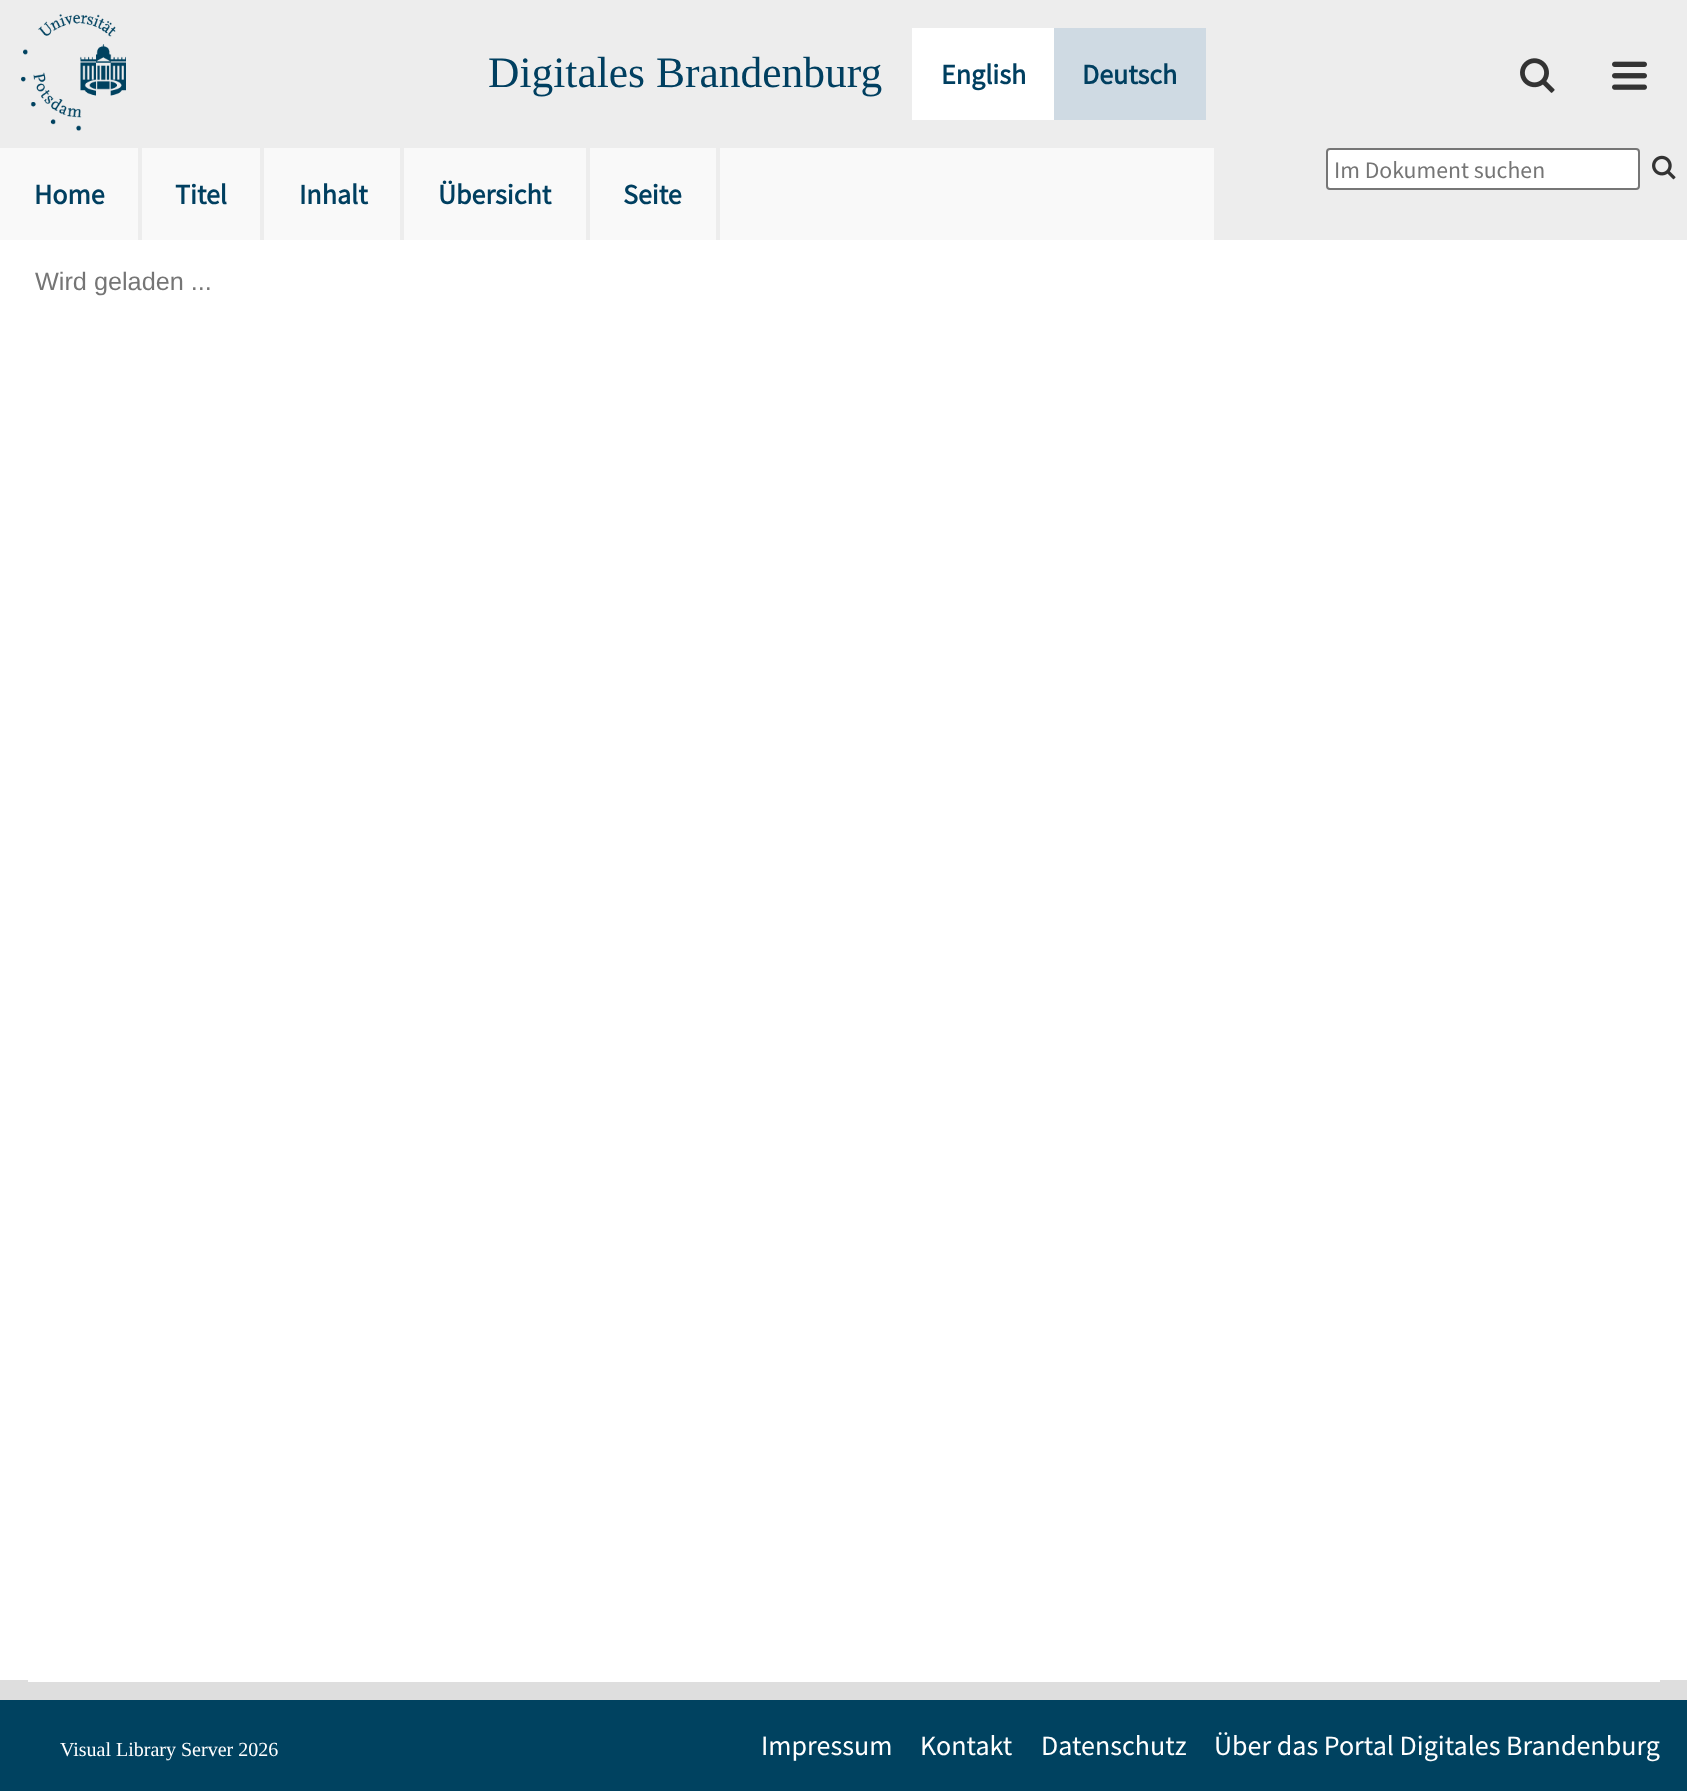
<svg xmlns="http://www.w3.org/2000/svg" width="1687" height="1791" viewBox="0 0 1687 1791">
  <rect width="100%" height="100%" fill="#ffffff"/>
  <rect x="0" y="0" width="1687" height="240" fill="#ededed"/>
  <image x="21" y="14" width="105" height="117" href="img1.png"/>
  <text x="488" y="87" font-family="Liberation Serif" font-size="43.5" fill="#003f60">Digitales Brandenburg</text>
  <rect x="912" y="28" width="142" height="92" fill="#ffffff"/>
  <text x="941" y="84" font-family="Source Sans Pro" font-size="28" font-weight="bold" fill="#003f60">English</text>
  <rect x="1054" y="28" width="152" height="92" fill="#cfdae3"/>
  <text x="1082" y="84" font-family="Source Sans Pro" font-size="28" font-weight="bold" fill="#003f60">Deutsch</text>
  <image x="1520" y="58" width="35" height="35" href="img2.png"/>
  <image x="1612" y="61" width="35" height="29" href="img3.png"/>
  <rect x="1327" y="149" width="312" height="40" rx="3" fill="#ffffff" stroke="#767676" stroke-width="2"/>
  <text x="1334" y="178" font-family="Source Sans Pro" font-size="23.75" fill="#757575">Im Dokument suchen</text>
  <image x="1652" y="155" width="24" height="25" href="img4.png"/>
  <rect x="0" y="148" width="1214" height="92" fill="#f9f9f9"/>
  <rect x="138" y="148" width="4" height="92" fill="#ededed"/>
  <text x="34" y="204" font-family="Source Sans Pro" font-size="28" font-weight="bold" fill="#003f60">Home</text>
  <rect x="260" y="148" width="4" height="92" fill="#ededed"/>
  <text x="175" y="204" font-family="Source Sans Pro" font-size="28" font-weight="bold" fill="#003f60">Titel</text>
  <rect x="400" y="148" width="4" height="92" fill="#ededed"/>
  <text x="299" y="204" font-family="Source Sans Pro" font-size="28" font-weight="bold" fill="#003f60">Inhalt</text>
  <rect x="586" y="148" width="4" height="92" fill="#ededed"/>
  <text x="438" y="204" font-family="Source Sans Pro" font-size="28" font-weight="bold" fill="#003f60">Übersicht</text>
  <rect x="716" y="148" width="4" height="92" fill="#ededed"/>
  <text x="623" y="204" font-family="Source Sans Pro" font-size="28" font-weight="bold" fill="#003f60">Seite</text>
  <rect x="0" y="1680" width="1687" height="20" fill="#dedede"/>
  <rect x="28" y="1680" width="1632" height="2" fill="#ffffff"/>
  <text x="35" y="290" font-family="Liberation Sans" font-size="25.25" fill="#757575">Wird geladen ...</text>
  <rect x="0" y="1700" width="1687" height="91" fill="#004260"/>
  <text x="60" y="1756" font-family="Liberation Serif" font-size="20" fill="#ffffff">Visual Library Server 2026</text>
  <text x="761" y="1755" font-family="Source Sans Pro" font-size="28" fill="#ffffff">Impressum</text>
  <text x="920" y="1755" font-family="Source Sans Pro" font-size="28" fill="#ffffff">Kontakt</text>
  <text x="1041" y="1755" font-family="Source Sans Pro" font-size="28" fill="#ffffff">Datenschutz</text>
  <text x="1214" y="1755" font-family="Source Sans Pro" font-size="28" fill="#ffffff">Über das Portal Digitales Brandenburg</text>
</svg>
